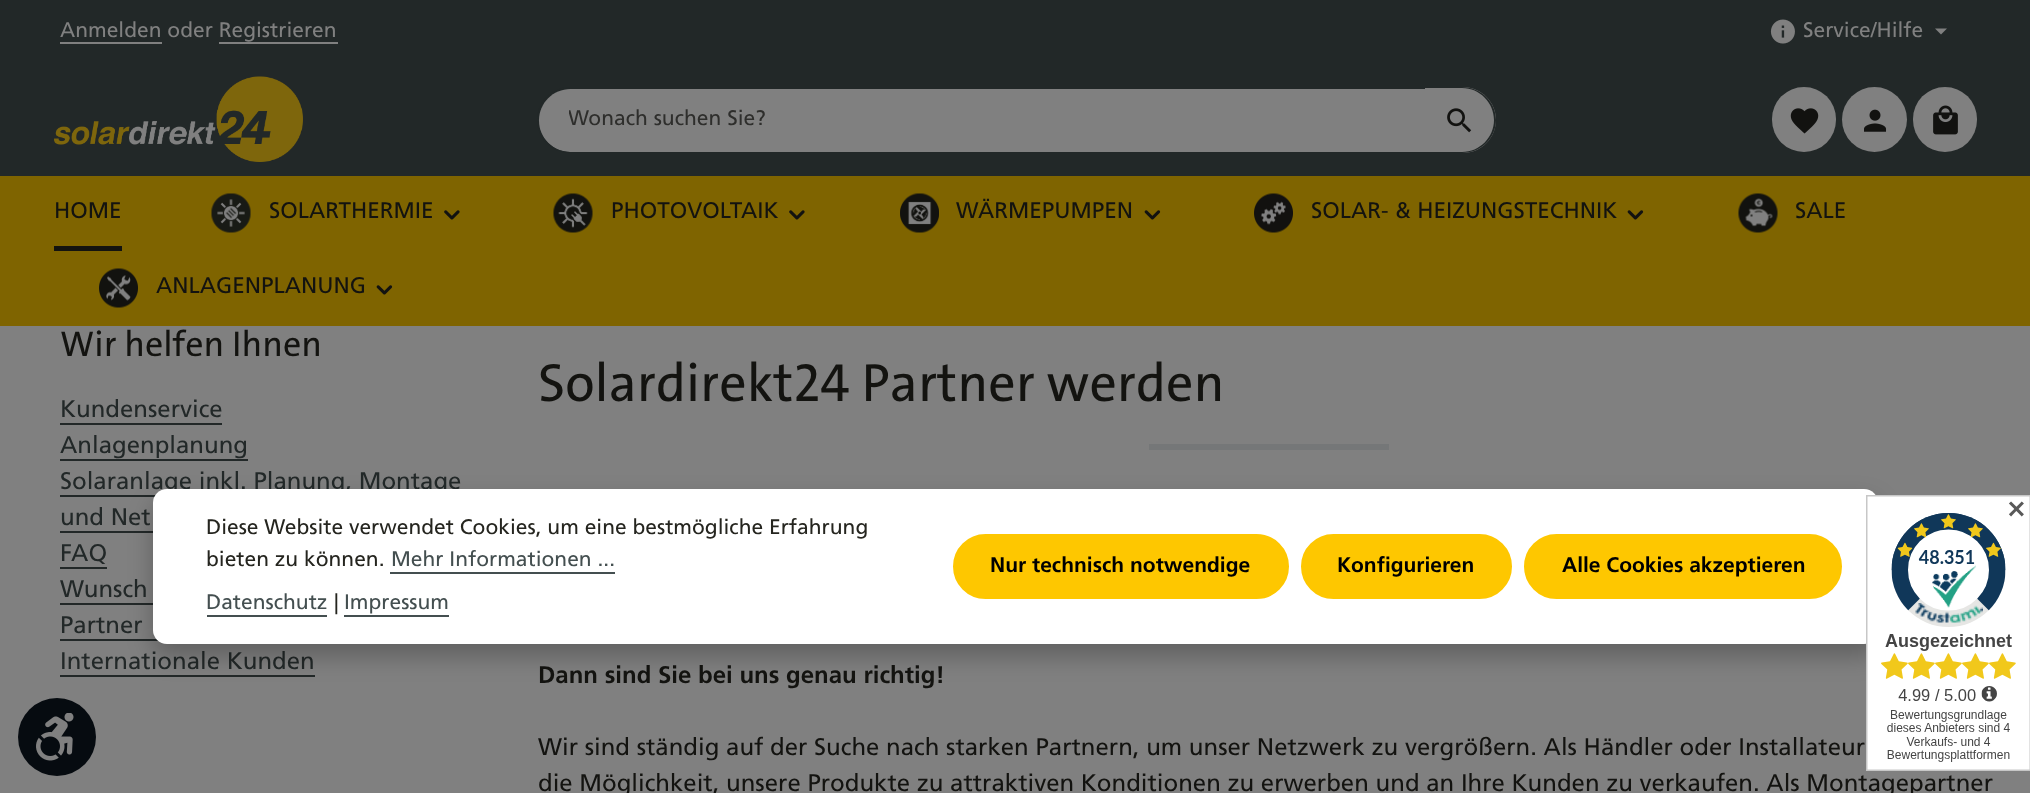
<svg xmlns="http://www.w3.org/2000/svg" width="2030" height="793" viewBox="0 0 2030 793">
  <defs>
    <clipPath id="clip1"><rect x="569" y="107" width="828" height="27"/></clipPath>
    <filter id="blur1" x="-50%" y="-200%" width="200%" height="500%"><feGaussianBlur stdDeviation="12"/></filter>
  </defs>
  <rect width="100%" height="100%" fill="#808080"/>
  <rect x="0" y="0" width="2030" height="176" fill="#222828"/>
  <text x="60" y="37" font-family="Frutiger" font-size="21" fill="#808080">Anmelden oder Registrieren</text>
  <rect x="60" y="42" width="102" height="2" fill="#808080"/>
  <rect x="219" y="42" width="119" height="2" fill="#808080"/>
  <image x="1770" y="19" width="25" height="25" href="img1.png"/>
  <text x="1803" y="37" font-family="Frutiger" font-size="21" fill="#808080">Service/Hilfe</text>
  <path d="M1935 28.5H1947L1941 34.5Z" fill="#808080"/>
  <image x="54" y="76" width="249" height="86" href="img2.png"/>
  <path d="M570.5 89H1427V152H570.5C553 152 539 138 539 120.5C539 103 553 89 570.5 89Z" fill="#808080"/>
  <path d="M570 87H1426V153H570C552 153 537 138 537 120C537 102 552 87 570 87ZM570 88H1426V152H570C553 152 538 137 538 120C538 103 553 88 570 88Z" fill="#222828" fill-rule="evenodd"/>
  <g clip-path="url(#clip1)">
    <text x="568" y="125" font-family="Frutiger" font-size="21" fill="#2e2e2c">Wonach suchen Sie?</text>
  </g>
  <path d="M1425 87H1463C1481 87 1496 102 1496 120C1496 138 1481 153 1463 153H1425Z" fill="#808080"/>
  <path d="M1425 87H1462C1481 87 1496 102 1496 120C1496 138 1481 153 1462 153H1425ZM1425 88H1462C1480 88 1494 103 1494 120C1494 137 1480 152 1462 152H1425Z" fill="#222828" fill-rule="evenodd"/>
  <image x="1447" y="108" width="25" height="25" href="img3.png"/>
  <rect x="1772" y="87" width="64" height="65" rx="32" fill="#808080"/>
  <image x="1790" y="108" width="29" height="26" href="img4.png"/>
  <circle cx="1874.5" cy="119.5" r="32.5" fill="#808080"/>
  <image x="1864" y="109" width="23" height="23" href="img5.png"/>
  <rect x="1913" y="87" width="64" height="65" rx="32" fill="#808080"/>
  <image x="1933" y="105" width="25" height="30" href="img6.png"/>
  <rect x="0" y="176" width="2030" height="150" fill="#7f6400"/>
  <text x="54" y="218" font-family="Frutiger" font-size="22.5" fill="#131310">HOME</text>
  <rect x="54" y="246" width="68" height="5" fill="#131310"/>
  <image x="211" y="193" width="40" height="40" href="img7.png"/>
  <text x="269" y="218" font-family="Frutiger" font-size="22.5" fill="#131310">SOLARTHERMIE</text>
  <image x="444" y="210" width="16" height="10" href="img8.png"/>
  <image x="553" y="193" width="40" height="40" href="img9.png"/>
  <text x="611" y="218" font-family="Frutiger" font-size="22.5" fill="#131310">PHOTOVOLTAIK</text>
  <image x="789" y="210" width="16" height="10" href="img8.png"/>
  <image x="900" y="193" width="39" height="40" href="img10.png"/>
  <text x="956" y="218" font-family="Frutiger" font-size="22.5" fill="#131310">WÄRMEPUMPEN</text>
  <image x="1144" y="210" width="17" height="10" href="img11.png"/>
  <image x="1254" y="193" width="39" height="40" href="img12.png"/>
  <text x="1311" y="218" font-family="Frutiger" font-size="22.5" fill="#131310">SOLAR- &amp; HEIZUNGSTECHNIK</text>
  <image x="1627" y="210" width="17" height="10" href="img11.png"/>
  <image x="1738" y="193" width="40" height="40" href="img13.png"/>
  <text x="1795" y="218" font-family="Frutiger" font-size="22.5" fill="#131310">SALE</text>
  <image x="99" y="268" width="39" height="40" href="img14.png"/>
  <text x="156" y="293" font-family="Frutiger" font-size="22.5" fill="#131310">ANLAGENPLANUNG</text>
  <image x="376" y="285" width="17" height="10" href="img11.png"/>
  <circle cx="57" cy="737" r="39" fill="#060b10"/>
  <image x="36" y="713" width="38" height="48" href="img15.png"/>
  <text x="60" y="356" font-family="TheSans" font-size="36" fill="#131310">Wir helfen Ihnen</text>
  <text x="60" y="417" font-family="Frutiger" font-size="24" fill="#222828">Kundenservice</text>
  <rect x="60" y="423" width="162" height="2" fill="#222828"/>
  <text x="60" y="453" font-family="Frutiger" font-size="24" fill="#222828">Anlagenplanung</text>
  <rect x="60" y="459" width="188" height="2" fill="#222828"/>
  <text x="60" y="489" font-family="Frutiger" font-size="24" fill="#222828">Solaranlage inkl. Planung, Montage</text>
  <rect x="60" y="495" width="96" height="2" fill="#222828"/>
  <text x="60" y="525" font-family="Frutiger" font-size="24" fill="#222828">und Net</text>
  <rect x="60" y="531" width="93" height="2" fill="#222828"/>
  <text x="60" y="561" font-family="Frutiger" font-size="24" fill="#222828">FAQ</text>
  <rect x="60" y="567" width="47" height="2" fill="#222828"/>
  <text x="60" y="597" font-family="Frutiger" font-size="24" fill="#222828">Wunsch</text>
  <rect x="60" y="603" width="93" height="2" fill="#222828"/>
  <text x="60" y="633" font-family="Frutiger" font-size="24" fill="#222828">Partner</text>
  <rect x="60" y="639" width="99" height="2" fill="#222828"/>
  <text x="60" y="669" font-family="Frutiger" font-size="24" fill="#222828">Internationale Kunden</text>
  <rect x="60" y="675" width="255" height="2" fill="#222828"/>
  <text x="538" y="401" font-family="TheSans" font-size="54" fill="#131310">Solardirekt24 Partner werden</text>
  <rect x="1149" y="444" width="240" height="6" fill="#757778"/>
  <text x="538" y="683" font-family="Frutiger" font-size="24" font-weight="bold" fill="#131310">Dann sind Sie bei uns genau richtig!</text>
  <text x="538" y="755" font-family="Frutiger" font-size="24" fill="#131310">Wir sind ständig auf der Suche nach starken Partnern, um unser Netzwerk zu vergrößern. Als Händler oder Installateur</text>
  <text x="538" y="791" font-family="Frutiger" font-size="24" fill="#131310">die Möglichkeit, unsere Produkte zu attraktiven Konditionen zu erwerben und an Ihre Kunden zu verkaufen. Als Montagepartner</text>
  <rect x="153" y="501" width="1725" height="155" rx="14" fill="#000000" fill-opacity="0.25" filter="url(#blur1)"/>
  <rect x="153" y="489" width="1725" height="155" rx="14" fill="#ffffff"/>
  <image x="1866" y="495" width="164" height="276" href="img16.png"/>
  <text x="2006" y="518" font-family="DejaVu Sans" font-size="24" font-weight="bold" fill="#595959">✕</text>
  <text x="206" y="534" font-family="Frutiger" font-size="21" fill="#25251f">Diese Website verwendet Cookies, um eine bestmögliche Erfahrung</text>
  <text x="206" y="566" font-family="Frutiger" font-size="21" fill="#25251f">bieten zu können.</text>
  <text x="391" y="566" font-family="Frutiger" font-size="21" fill="#444f50">Mehr Informationen ...</text>
  <rect x="390" y="572" width="225" height="2" fill="#444f50"/>
  <text x="206" y="609" font-family="Frutiger" font-size="21" fill="#444f50">Datenschutz</text>
  <rect x="207" y="615" width="120" height="2" fill="#444f50"/>
  <text x="334" y="609" font-family="Frutiger" font-size="21" fill="#25251f">|</text>
  <text x="344" y="609" font-family="Frutiger" font-size="21" fill="#444f50">Impressum</text>
  <rect x="344" y="615" width="105" height="2" fill="#444f50"/>
  <rect x="954" y="535" width="334" height="63" rx="31.5" fill="#fec700" stroke="#fec700" stroke-width="2"/>
  <text x="990" y="572" font-family="Frutiger" font-size="21" font-weight="bold" fill="#000000">Nur technisch notwendige</text>
  <rect x="1302" y="535" width="209" height="63" rx="31.5" fill="#fec700" stroke="#fec700" stroke-width="2"/>
  <text x="1337" y="572" font-family="Frutiger" font-size="21" font-weight="bold" fill="#000000">Konfigurieren</text>
  <rect x="1525" y="535" width="316" height="63" rx="31.5" fill="#fec700" stroke="#fec700" stroke-width="2"/>
  <text x="1562" y="572" font-family="Frutiger" font-size="21" font-weight="bold" fill="#000000">Alle Cookies akzeptieren</text>
</svg>
